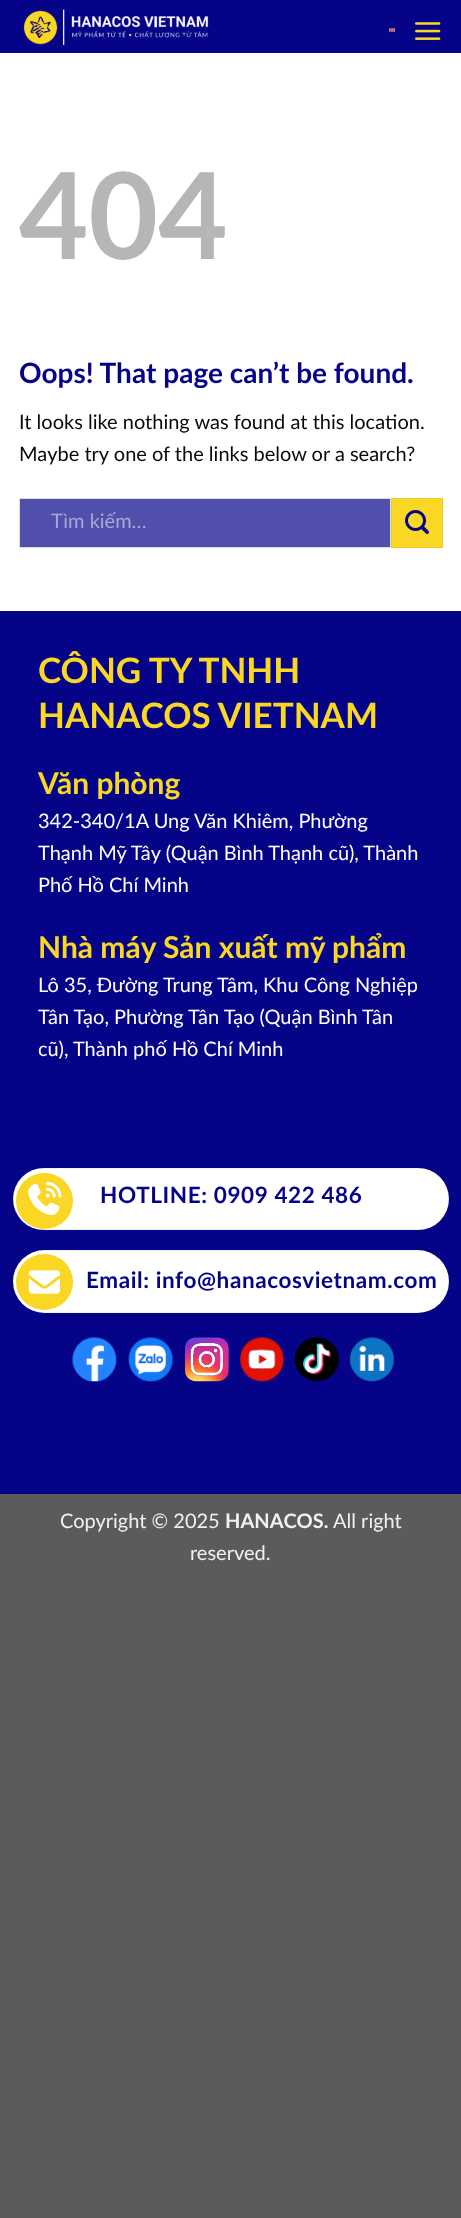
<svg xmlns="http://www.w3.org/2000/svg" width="461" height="2218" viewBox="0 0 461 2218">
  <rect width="100%" height="100%" fill="#5b5b5b"/>
  <rect x="0" y="53" width="461" height="558" fill="#ffffff"/>
  <rect x="0" y="0" width="461" height="53" fill="#050388"/>
  <image x="23" y="9" width="186" height="36" href="img1.png"/>
  <image x="389" y="28" width="6" height="5" href="img2.png"/>
  <image x="415" y="22" width="26" height="18" href="img3.png"/>
  <text x="19" y="259" font-family="Lato" font-size="120" font-weight="bold" fill="#b6b6b6">404</text>
  <text x="19" y="383" font-family="Lato" font-size="28" font-weight="bold" fill="#050388">Oops! That page can’t be found.</text>
  <text x="19" y="429" font-family="Lato" font-size="20" fill="#0a0a0a">It looks like nothing was found at this location.</text>
  <text x="19" y="461" font-family="Lato" font-size="20" fill="#0a0a0a">Maybe try one of the links below or a search?</text>
  <rect x="19.5" y="498.5" width="371" height="49" fill="#504fac" stroke="#dddddd"/>
  <text x="51" y="528" font-family="Lato" font-size="20" fill="#a8a7d6">Tìm kiếm…</text>
  <rect x="391.5" y="498.5" width="51" height="49" fill="#fad724" stroke="#eecc22"/>
  <image x="405" y="510" width="24" height="24" href="img4.png"/>
  <rect x="0" y="611" width="461" height="883" fill="#050388"/>
  <text x="38" y="683" font-family="Lato" font-size="35" font-weight="bold" fill="#fad724">CÔNG TY TNHH</text>
  <text x="38" y="728" font-family="Lato" font-size="35" font-weight="bold" fill="#fad724">HANACOS VIETNAM</text>
  <text x="38" y="794" font-family="Lato" font-size="30" font-weight="bold" fill="#fad724">Văn phòng</text>
  <text x="38" y="828" font-family="Lato" font-size="20" fill="#ffffff">342-340/1A Ung Văn Khiêm, Phường</text>
  <text x="38" y="860" font-family="Lato" font-size="20" fill="#ffffff">Thạnh Mỹ Tây (Quận Bình Thạnh cũ), Thành</text>
  <text x="38" y="892" font-family="Lato" font-size="20" fill="#ffffff">Phố Hồ Chí Minh</text>
  <text x="38" y="958" font-family="Lato" font-size="30" font-weight="bold" fill="#fad724">Nhà máy Sản xuất mỹ phẩm</text>
  <text x="38" y="992" font-family="Lato" font-size="20" fill="#ffffff">Lô 35, Đường Trung Tâm, Khu Công Nghiệp</text>
  <text x="38" y="1024" font-family="Lato" font-size="20" fill="#ffffff">Tân Tạo, Phường Tân Tạo (Quận Bình Tân</text>
  <text x="38" y="1056" font-family="Lato" font-size="20" fill="#ffffff">cũ), Thành phố Hồ Chí Minh</text>
  <rect x="13" y="1168" width="436" height="62" rx="31" fill="#ffffff"/>
  <rect x="13.5" y="1168.5" width="435" height="61" fill="none" stroke="#000000" stroke-opacity="0.05"/>
  <rect x="16" y="1173" width="57" height="56" rx="28" fill="#fad724"/>
  <image x="28" y="1182" width="34" height="34" href="img5.png"/>
  <text x="100" y="1203" font-family="Lato" font-size="22.5" font-weight="bold" letter-spacing="0.6" fill="#050388">HOTLINE: 0909 422 486</text>
  <rect x="13" y="1250" width="436" height="63" rx="31.5" fill="#ffffff"/>
  <rect x="13.5" y="1250.5" width="435" height="62" fill="none" stroke="#000000" stroke-opacity="0.05"/>
  <rect x="16" y="1254" width="57" height="56" rx="28" fill="#fad724"/>
  <image x="28" y="1270" width="32" height="24" href="img6.png"/>
  <text x="86" y="1288" font-family="Lato" font-size="22.5" font-weight="bold" letter-spacing="0.6" fill="#050388">Email: info@hanacosvietnam.com</text>
  <image x="72" y="1337" width="45" height="45" href="img7.png"/>
  <image x="128" y="1337" width="45" height="45" href="img8.png"/>
  <image x="185" y="1337" width="44" height="45" href="img9.png"/>
  <image x="240" y="1337" width="44" height="45" href="img10.png"/>
  <image x="295" y="1337" width="44" height="45" href="img11.png"/>
  <image x="350" y="1337" width="44" height="45" href="img12.png"/>
  <text x="60" y="1528" font-family="Lato" font-size="20" fill="#f1f1f1">Copyright © 2025</text>
  <text x="225" y="1528" font-family="Lato" font-size="20" font-weight="bold" fill="#f1f1f1">HANACOS.</text>
  <text x="333" y="1528" font-family="Lato" font-size="20" fill="#f1f1f1">All right</text>
  <text x="190" y="1560" font-family="Lato" font-size="20" fill="#f1f1f1">reserved.</text>
</svg>
